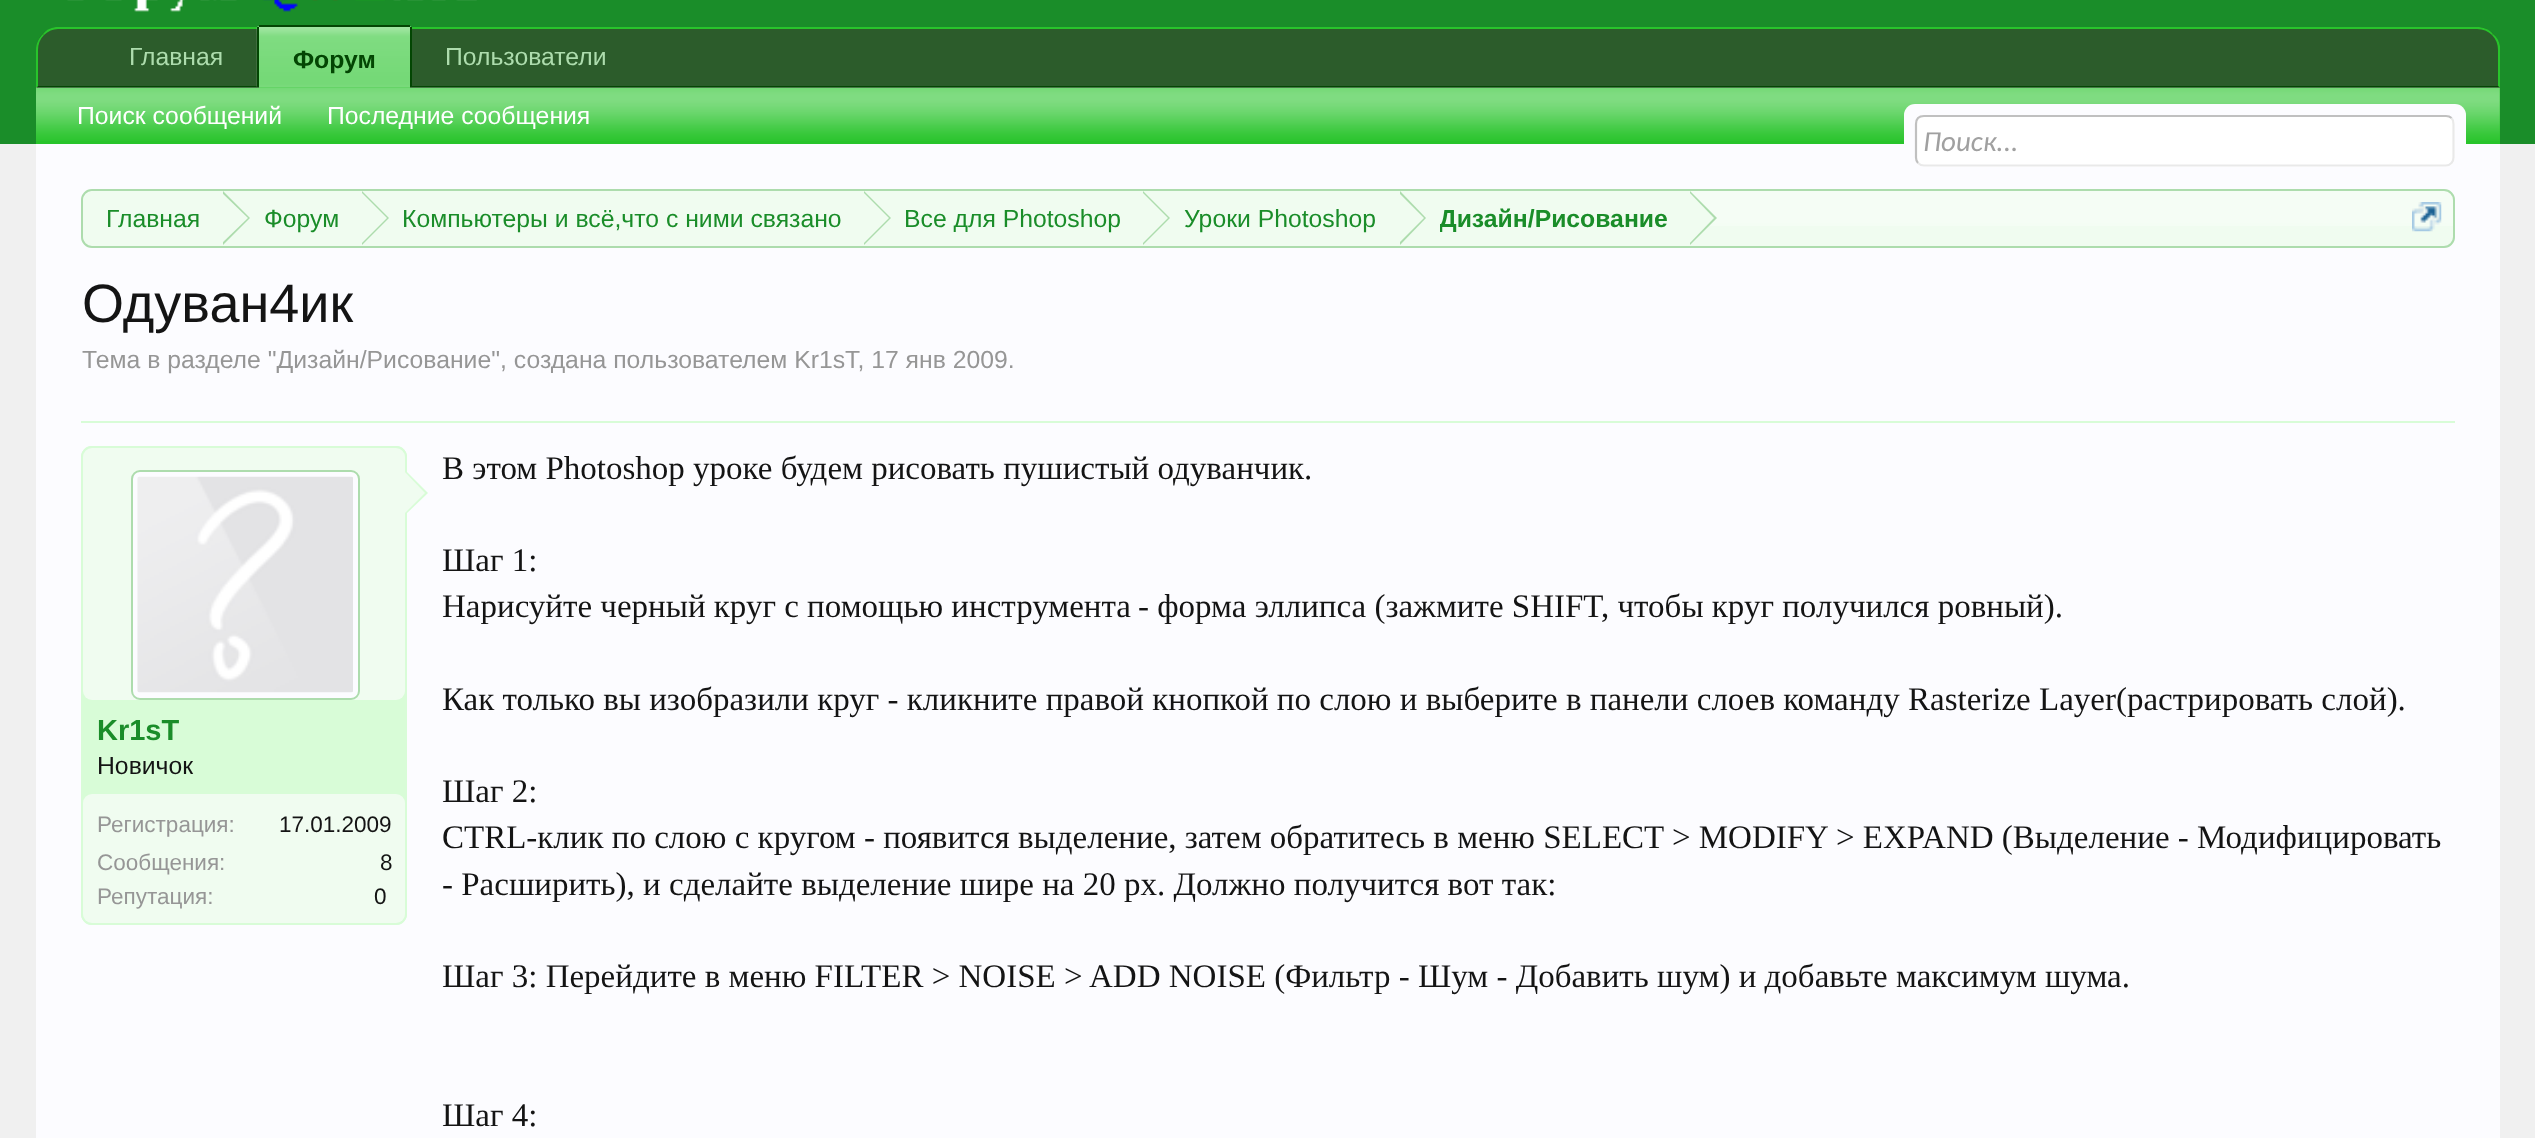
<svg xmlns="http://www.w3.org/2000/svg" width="2535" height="1138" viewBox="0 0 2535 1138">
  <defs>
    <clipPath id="clip1"><rect x="83" y="191" width="2370" height="54" rx="9"/></clipPath>
    <clipPath id="clip2"><rect x="1440" y="191" width="227" height="54"/></clipPath>
  </defs>
  <rect width="100%" height="100%" fill="#f0f0f0"/>
  <rect x="0" y="0" width="2535" height="144" fill="#1a8d29"/>
  <image x="67" y="0" width="410" height="12" href="img1.png"/>
  <path d="M59 27H2477C2489.5 27 2500 37.5 2500 50V88H36V50C36 37.5 46.5 27 59 27Z" fill="#2c5c2b"/>
  <path d="M58 27C52 27 47 29 43 34L44 35C48 31 53 29 58 29H2477C2483 29 2488 31 2492 35L2493 34C2489 29 2483 27 2477 27Z" fill="#28c42b"/>
  <path d="M2493 34C2497 37 2499 41 2500 46V88L2498 86V50C2498 44 2496 39 2492 35Z" fill="#28c42b"/>
  <path d="M2500 88L2498 86H38L36 88Z" fill="#034603"/>
  <path d="M36 88L38 86V50C38 44 40 39 44 35L43 34C39 38 36 43 36 50Z" fill="#28c42b"/>
  <text x="129" y="65" font-family="Liberation Sans" font-size="24.75" fill="#addcad">Главная</text>
  <text x="445" y="65" font-family="Liberation Sans" font-size="24.75" fill="#addcad">Пользователи</text>
  <path d="M262 25H407C410 25 412 27 412 30V88H257V30C257 27 259 25 262 25Z" fill="#28c42b"/>
  <image x="256" y="26" width="156" height="62" href="img2.png"/>
  <rect x="259" y="25" width="151" height="2" fill="#034603"/>
  <rect x="410" y="27" width="2" height="61" fill="#034603"/>
  <rect x="257" y="27" width="2" height="61" fill="#034603"/>
  <text x="293" y="68" font-family="Liberation Sans" font-size="24.75" font-weight="bold" fill="#034603">Форум</text>
  <rect x="36" y="88" width="2464" height="56" fill="#28c42b"/>
  <image x="36" y="87" width="2464" height="54" href="img3.png"/>
  <text x="77" y="124" font-family="Liberation Sans" font-size="24.75" fill="#ffffff">Поиск сообщений</text>
  <text x="327" y="124" font-family="Liberation Sans" font-size="24.75" fill="#ffffff">Последние сообщения</text>
  <rect x="36" y="144" width="2464" height="994" fill="#fcfcff"/>
  <rect x="1904" y="104" width="562" height="63" rx="11" fill="#fcfcff"/>
  <rect x="1915" y="115" width="540" height="52" rx="9" fill="#ffffff"/>
  <path d="M2451.5 118C2453 119.5 2453.5 121.5 2453.5 124V157.5C2453.5 159.5 2453 161.5 2451.5 163C2450 164.5 2448 165.5 2446 165.5H1924C1921.5 165.5 1919.5 164.5 1918 163" fill="none" stroke="#e9e9e9" stroke-width="2.2"/>
  <path d="M1918 163C1916.5 161.5 1916 159.5 1916 157.5V124C1916 121.5 1916.5 119.5 1918 118C1919.5 116.5 1921.5 116 1924 116H2446C2448 116 2450 116.5 2451.5 118" fill="none" stroke="#c0c0c0" stroke-width="2.2"/>
  <text x="1923" y="151" font-family="Carlito" font-size="29" font-style="italic" fill="#a0a0a0">Поиск...</text>
  <rect x="81" y="189" width="2374" height="59" rx="11" fill="#f0fcf0"/>
  <image x="81" y="191" width="2373" height="35" href="img4.png"/>
  <rect x="82" y="190" width="2372" height="57" rx="10" fill="none" stroke="#addcad" stroke-width="2"/>
  <g clip-path="url(#clip1)">
    <path d="M94 191H223V248H94C88 248 83 243 83 237V202C83 196 88 191 94 191Z" fill="#f0fcf0"/>
  </g>
  <text x="106" y="227" font-family="Liberation Sans" font-size="24.75" fill="#1a8d29">Главная</text>
  <rect x="223" y="191" width="1467" height="35" fill="#f0fcf0"/>
  <path d="M223 245V191L250 218Z" fill="#addcad"/>
  <path d="M220 245V191L248 218Z" fill="#f0fcf0"/>
  <text x="264" y="227" font-family="Liberation Sans" font-size="24.75" fill="#1a8d29">Форум</text>
  <path d="M362 245V191L389 218Z" fill="#addcad"/>
  <path d="M360 245V191L387 218Z" fill="#f0fcf0"/>
  <text x="402" y="227" font-family="Liberation Sans" font-size="24.75" fill="#1a8d29">Компьютеры и всё,что с ними связано</text>
  <path d="M864 245V191L891 218Z" fill="#addcad"/>
  <path d="M862 245V191L889 218Z" fill="#f0fcf0"/>
  <text x="904" y="227" font-family="Liberation Sans" font-size="24.75" fill="#1a8d29">Все для Photoshop</text>
  <path d="M1143 245V191L1170 218Z" fill="#addcad"/>
  <path d="M1141 245V191L1168 218Z" fill="#f0fcf0"/>
  <text x="1184" y="227" font-family="Liberation Sans" font-size="24.75" fill="#1a8d29">Уроки Photoshop</text>
  <path d="M1400 245V191L1426 218Z" fill="#addcad"/>
  <path d="M1397 245V191L1424 218Z" fill="#f0fcf0"/>
  <g clip-path="url(#clip2)">
    <text x="1439" y="227" font-family="Liberation Sans" font-size="24.75" font-weight="bold" fill="#1a8d29">Дизайн/Рисование</text>
  </g>
  <path d="M1690 245V191L1717 218Z" fill="#addcad"/>
  <path d="M1688 245V191L1714 218Z" fill="#f0fcf0"/>
  <image x="2412" y="202" width="30" height="30" href="img5.png"/>
  <text x="82" y="322" font-family="Liberation Sans" font-size="54" fill="#141414">Одуван4ик</text>
  <text x="82" y="368" font-family="Liberation Sans" font-size="24.75" fill="#969696">Тема в разделе "Дизайн/Рисование", создана пользователем Kr1sT, 17 янв 2009.</text>
  <rect x="81" y="421" width="2374" height="2" fill="#d8fcd7"/>
  <rect x="81" y="446" width="326" height="479" rx="11" fill="#d8fcd7"/>
  <image x="81" y="914" width="326" height="8" href="img6.png"/>
  <rect x="82" y="447" width="324" height="477" rx="10" fill="none" stroke="#d8fcd7" stroke-width="2"/>
  <rect x="83" y="448" width="322" height="252" rx="9" fill="#f0fcf0"/>
  <rect x="132" y="471" width="227" height="228" rx="8" fill="#fcfcff" stroke="#addcad" stroke-width="2"/>
  <image x="137" y="476" width="216" height="217" href="img7.png"/>
  <path d="M405 515V470L428 493Z" fill="#d8fcd7"/>
  <path d="M403 515V470L425 493Z" fill="#f0fcf0"/>
  <text x="97" y="740" font-family="Liberation Sans" font-size="29" font-weight="bold" fill="#1a8d29">Kr1sT</text>
  <text x="97" y="774" font-family="Liberation Sans" font-size="24.75" fill="#141414">Новичок</text>
  <rect x="83" y="794" width="322" height="129" rx="9" fill="#f0fcf0"/>
  <text x="97" y="832" font-family="Liberation Sans" font-size="22.5" fill="#969696">Регистрация:</text>
  <text x="279" y="832" font-family="Liberation Sans" font-size="22.5" fill="#141414">17.01.2009</text>
  <text x="97" y="870" font-family="Liberation Sans" font-size="22.5" fill="#969696">Сообщения:</text>
  <text x="380" y="870" font-family="Liberation Sans" font-size="22.5" fill="#141414">8</text>
  <text x="97" y="904" font-family="Liberation Sans" font-size="22.5" fill="#969696">Репутация:</text>
  <text x="374" y="904" font-family="Liberation Sans" font-size="22.5" fill="#141414">0</text>
  <text x="442" y="479" font-family="Liberation Serif" font-size="33" fill="#141414">В этом Photoshop уроке будем рисовать пушистый одуванчик.</text>
  <text x="442" y="571" font-family="Liberation Serif" font-size="33" fill="#141414">Шаг 1:</text>
  <text x="442" y="617" font-family="Liberation Serif" font-size="33" fill="#141414">Нарисуйте черный круг с помощью инструмента</text>
  <text x="1138" y="617" font-family="Liberation Serif" font-size="33" fill="#141414">- форма эллипса (зажмите SHIFT, чтобы круг получился ровный).</text>
  <text x="442" y="710" font-family="Liberation Serif" font-size="33" fill="#141414">Как только вы изобразили круг - кликните правой кнопкой по слою и выберите в панели слоев команду Rasterize Layer(растрировать слой).</text>
  <text x="442" y="802" font-family="Liberation Serif" font-size="33" fill="#141414">Шаг 2:</text>
  <text x="442" y="848" font-family="Liberation Serif" font-size="33" fill="#141414">CTRL-клик по слою с кругом - появится выделение, затем обратитесь в меню SELECT &gt; MODIFY &gt; EXPAND (Выделение - Модифицировать</text>
  <text x="442" y="895" font-family="Liberation Serif" font-size="33" fill="#141414">- Расширить), и сделайте выделение шире на 20 px. Должно получится вот так:</text>
  <text x="442" y="987" font-family="Liberation Serif" font-size="33" fill="#141414">Шаг 3: Перейдите в меню FILTER &gt; NOISE &gt; ADD NOISE (Фильтр - Шум - Добавить шум) и добавьте максимум шума.</text>
  <text x="442" y="1126" font-family="Liberation Serif" font-size="33" fill="#141414">Шаг 4:</text>
</svg>
